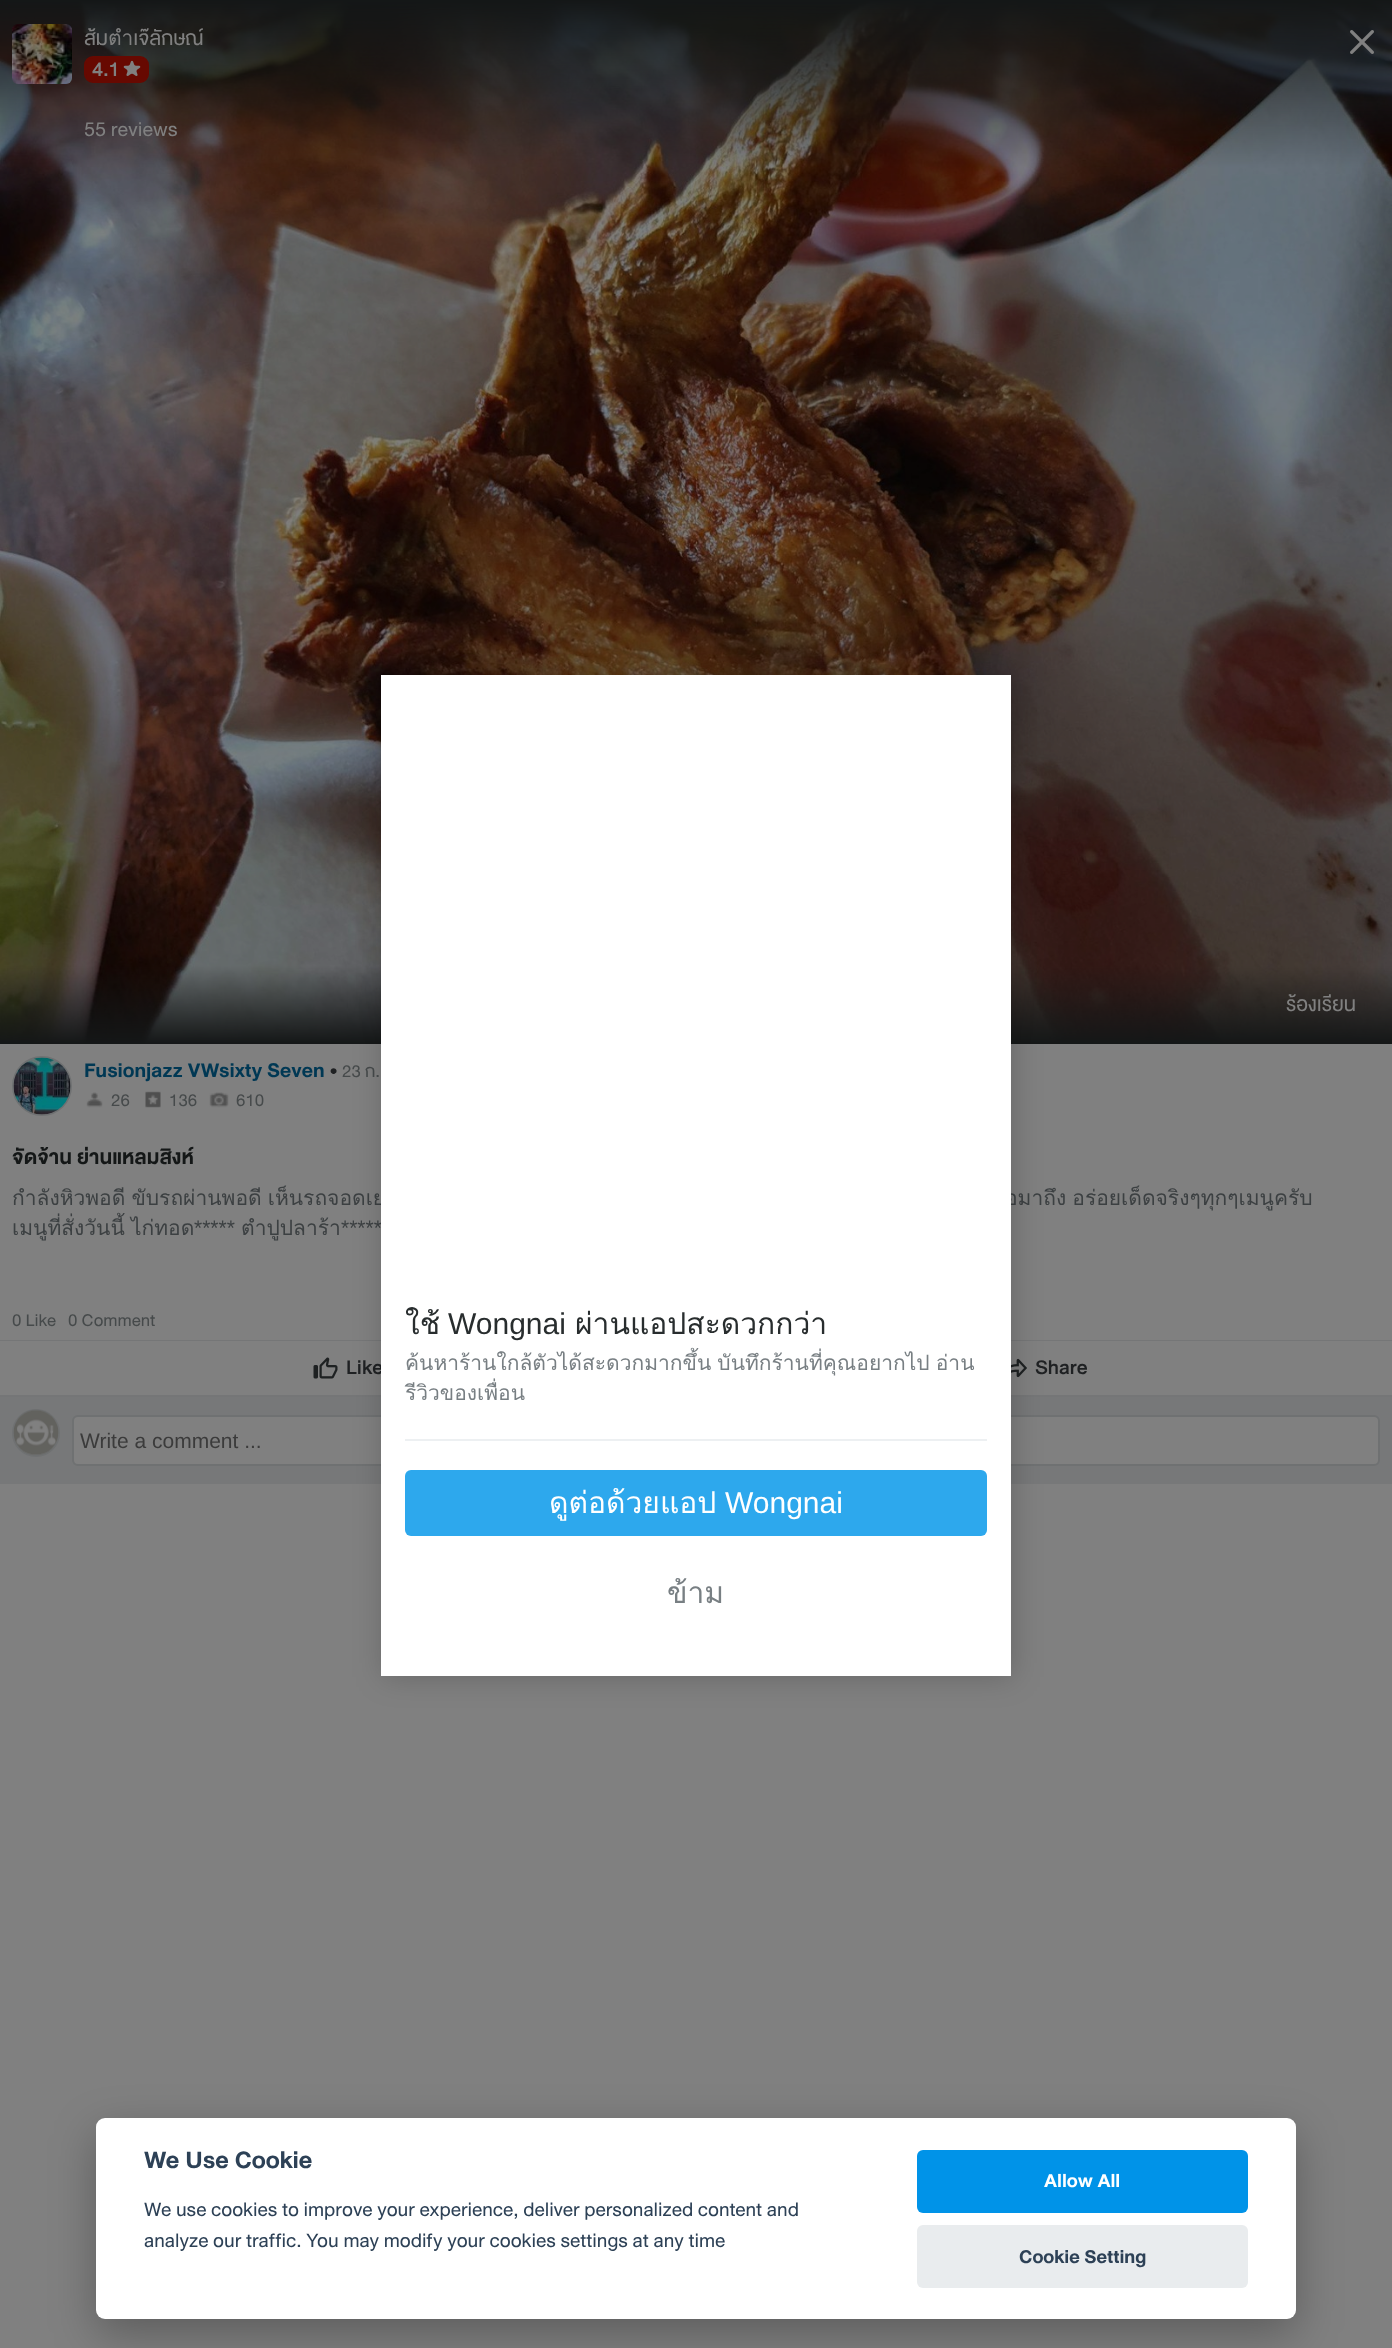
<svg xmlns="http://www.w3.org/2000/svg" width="1392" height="2348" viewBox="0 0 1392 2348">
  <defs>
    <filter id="blur1" x="-50%" y="-200%" width="200%" height="500%"><feGaussianBlur stdDeviation="15"/></filter>
    <filter id="blur2" x="-50%" y="-200%" width="200%" height="500%"><feGaussianBlur stdDeviation="22.5"/></filter>
  </defs>
  <rect width="100%" height="100%" fill="#808080"/>
  <image x="0" y="0" width="1392" height="1044" href="img1.png"/>
  <image x="12" y="24" width="60" height="60" href="img2.png"/>
  <text x="84" y="45" font-family="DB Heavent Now" font-size="21" fill="#808080">ส้มตำเจ๊ลักษณ์</text>
  <rect x="85" y="57" width="63" height="25" rx="8" fill="#670901" stroke="#670901" stroke-width="2"/>
  <text x="92" y="76" font-family="DB Heavent Now" font-size="21" font-weight="500" fill="#808080">4.1</text>
  <image x="123" y="60" width="18" height="16" href="img3.png"/>
  <text x="84" y="136" font-family="DB Heavent Now" font-size="21" fill="#808080">55 reviews</text>
  <text x="1286" y="1011" font-family="DB Heavent Now" font-size="21" fill="#808080">ร้องเรียน</text>
  <image x="1350" y="30" width="24" height="24" href="img4.png"/>
  <circle cx="42" cy="1086" r="29" fill="none" stroke="#6f7172" stroke-width="2"/>
  <image x="13" y="1057" width="58" height="58" href="img5.png"/>
  <text x="84" y="1077" font-family="DB Heavent Now" font-size="21" font-weight="bold" fill="#003854">Fusionjazz VWsixty Seven</text>
  <text x="330" y="1077" font-family="DB Heavent Now" font-size="21" fill="#1f2123">•</text>
  <text x="342" y="1077" font-family="DB Heavent Now" font-size="18" fill="#464a4b">23 ก.</text>
  <image x="86" y="1092" width="17" height="16" href="img6.png"/>
  <text x="111" y="1106" font-family="DB Heavent Now" font-size="18" fill="#464a4b">26</text>
  <image x="145" y="1091" width="16" height="17" href="img7.png"/>
  <text x="169" y="1106" font-family="DB Heavent Now" font-size="18" fill="#464a4b">136</text>
  <image x="209" y="1092" width="20" height="16" href="img8.png"/>
  <text x="236" y="1106" font-family="DB Heavent Now" font-size="18" fill="#464a4b">610</text>
  <text x="12" y="1164" font-family="DB Heavent Now" font-size="21" font-weight="bold" fill="#141717">จัดจ้าน ย่านแหลมสิงห์</text>
  <text x="12" y="1205" word-spacing="-1" font-family="Loma" font-size="21" fill="#3c4042">กำลังหิวพอดี ขับรถผ่านพอดี เห็นรถจอดเย</text>
  <text x="1005" y="1205" word-spacing="-1" font-family="Loma" font-size="21" fill="#3c4042">อมาถึง อร่อยเด็ดจริงๆทุกๆเมนูครับ</text>
  <text x="12" y="1235" font-family="Loma" font-size="21" fill="#3c4042">เมนูที่สั่งวันนี้</text>
  <text x="131" y="1235" font-family="Loma" font-size="21" fill="#3c4042">ไก่ทอด</text>
  <text x="194" y="1235" font-family="Liberation Sans" font-size="21" fill="#3c4042">*****</text>
  <text x="241" y="1235" font-family="Loma" font-size="21" fill="#3c4042">ตำปูปลาร้า</text>
  <text x="341" y="1235" font-family="Liberation Sans" font-size="21" fill="#3c4042">*****</text>
  <text x="12" y="1326" font-family="DB Heavent Now" font-size="18" fill="#464a4b">0 Like</text>
  <text x="68" y="1326" font-family="DB Heavent Now" font-size="18" fill="#464a4b">0 Comment</text>
  <rect x="0" y="1340" width="1392" height="57" fill="#757677"/>
  <rect x="0" y="1341" width="381" height="54" fill="#808080"/>
  <image x="313" y="1357" width="25" height="22" href="img9.png"/>
  <text x="346" y="1374" font-family="DB Heavent Now" font-size="21" font-weight="500" fill="#1f2123">Like</text>
  <rect x="1011" y="1341" width="381" height="54" fill="#808080"/>
  <image x="1011" y="1358" width="16" height="20" href="img10.png"/>
  <text x="1035" y="1374" font-family="DB Heavent Now" font-size="21" font-weight="500" fill="#1f2123">Share</text>
  <rect x="0" y="1397" width="1392" height="87" fill="#777879"/>
  <circle cx="36" cy="1433" r="23" fill="none" stroke="#6f7172" stroke-width="2"/>
  <image x="13" y="1409" width="46" height="47" href="img11.png"/>
  <rect x="73" y="1416" width="1306" height="49" rx="5" fill="#808080" stroke="#6f7172" stroke-width="2"/>
  <text x="80" y="1448" font-family="Liberation Sans" font-size="21" fill="#3b3b3b">Write a comment ...</text>
  <rect x="383" y="677" width="630" height="1000" fill="#000000" fill-opacity="0.2" filter="url(#blur1)"/>
  <rect x="381" y="675" width="630" height="1001" fill="#ffffff"/>
  <text x="405" y="1334" font-family="Loma" font-size="30" fill="#282d2e">ใช้</text>
  <text x="448" y="1334" font-family="Liberation Sans" font-size="30" fill="#282d2e">Wongnai</text>
  <text x="575" y="1334" font-family="Loma" font-size="30" fill="#282d2e">ผ่านแอปสะดวกกว่า</text>
  <text x="405" y="1370" word-spacing="-1" font-family="Loma" font-size="21" fill="#787f83">ค้นหาร้านใกล้ตัวได้สะดวกมากขึ้น บันทึกร้านที่คุณอยากไป อ่าน</text>
  <text x="405" y="1400" font-family="Loma" font-size="21" fill="#787f83">รีวิวของเพื่อน</text>
  <rect x="405" y="1439" width="582" height="2" fill="#edf0f2"/>
  <rect x="405" y="1470" width="582" height="66" rx="6" fill="#2da8ed"/>
  <text x="549" y="1513" font-family="Loma" font-size="30" fill="#ffffff">ดูต่อด้วยแอป</text>
  <text x="725" y="1513" font-family="Liberation Sans" font-size="30" fill="#ffffff">Wongnai</text>
  <text x="667" y="1603" font-family="Loma" font-size="30" fill="#787f83">ข้าม</text>
  <rect x="96" y="2133" width="1200" height="201" rx="9" fill="#020203" fill-opacity="0.28" filter="url(#blur2)"/>
  <rect x="96" y="2118" width="1200" height="201" rx="9" fill="#ffffff"/>
  <text x="144" y="2168" font-family="DB Heavent Now" font-size="25.25" font-weight="bold" fill="#2d4156">We Use Cookie</text>
  <text x="144" y="2216" font-family="DB Heavent Now" font-size="20.4" fill="#2d4156">We use cookies to improve your experience, deliver personalized content and</text>
  <text x="144" y="2247" font-family="DB Heavent Now" font-size="20.4" fill="#2d4156">analyze our traffic. You may modify your cookies settings at any time</text>
  <rect x="917" y="2150" width="331" height="63" rx="6" fill="#0093e8"/>
  <text x="1044" y="2187" font-family="DB Heavent Now" font-size="19.75" font-weight="bold" fill="#ffffff">Allow All</text>
  <rect x="917" y="2225" width="331" height="63" rx="6" fill="#e9ecee"/>
  <text x="1019" y="2263" font-family="DB Heavent Now" font-size="19.75" font-weight="bold" fill="#2d4156">Cookie Setting</text>
</svg>
